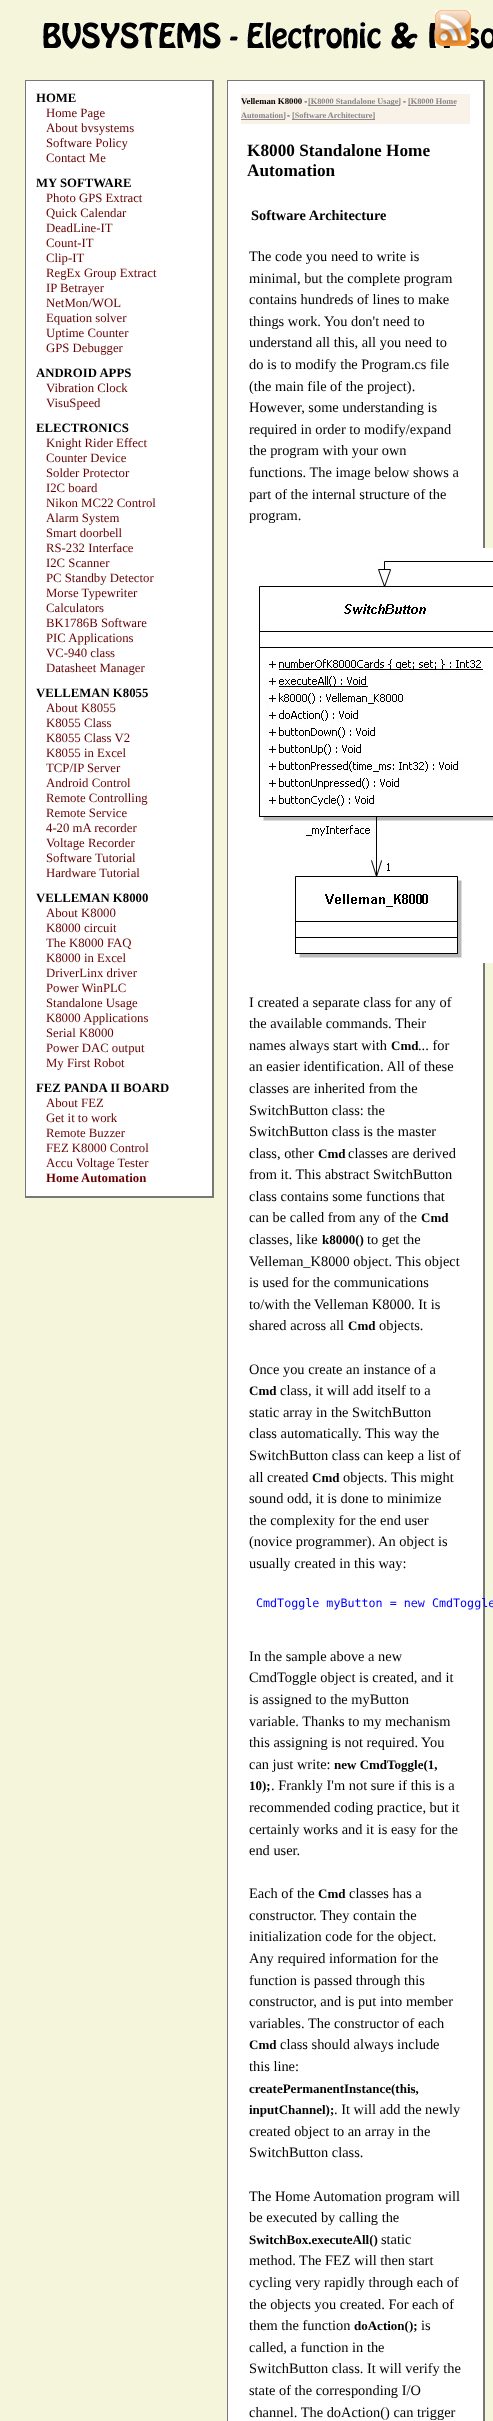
<svg xmlns="http://www.w3.org/2000/svg" width="493" height="2421" viewBox="0 0 493 2421">
  <rect width="100%" height="100%" fill="#f5f5dc"/>
  <image x="43" y="22" width="450" height="27" href="img2.png"/>
  <image x="435" y="10" width="36" height="36" href="img1.png"/>
  <rect x="26" y="81" width="186" height="1115" fill="#ffffff"/>
  <rect x="25" y="80" width="189" height="1" fill="#777777"/>
  <rect x="212" y="80" width="2" height="1118" fill="#777777"/>
  <rect x="25" y="1196" width="189" height="2" fill="#777777"/>
  <rect x="25" y="80" width="1" height="1118" fill="#777777"/>
  <text x="36" y="102" font-family="Liberation Serif" font-size="12.75" font-weight="bold" fill="#000000">HOME</text>
  <text x="46" y="117" font-family="Liberation Serif" font-size="12.75" fill="#660000">Home Page</text>
  <text x="46" y="132" font-family="Liberation Serif" font-size="12.75" fill="#660000">About bvsystems</text>
  <text x="46" y="147" font-family="Liberation Serif" font-size="12.75" fill="#660000">Software Policy</text>
  <text x="46" y="162" font-family="Liberation Serif" font-size="12.75" fill="#660000">Contact Me</text>
  <text x="36" y="187" font-family="Liberation Serif" font-size="12.75" font-weight="bold" fill="#000000">MY SOFTWARE</text>
  <text x="46" y="202" font-family="Liberation Serif" font-size="12.75" fill="#660000">Photo GPS Extract</text>
  <text x="46" y="217" font-family="Liberation Serif" font-size="12.75" fill="#660000">Quick Calendar</text>
  <text x="46" y="232" font-family="Liberation Serif" font-size="12.75" fill="#660000">DeadLine-IT</text>
  <text x="46" y="247" font-family="Liberation Serif" font-size="12.75" fill="#660000">Count-IT</text>
  <text x="46" y="262" font-family="Liberation Serif" font-size="12.75" fill="#660000">Clip-IT</text>
  <text x="46" y="277" font-family="Liberation Serif" font-size="12.75" fill="#660000">RegEx Group Extract</text>
  <text x="46" y="292" font-family="Liberation Serif" font-size="12.75" fill="#660000">IP Betrayer</text>
  <text x="46" y="307" font-family="Liberation Serif" font-size="12.75" fill="#660000">NetMon/WOL</text>
  <text x="46" y="322" font-family="Liberation Serif" font-size="12.75" fill="#660000">Equation solver</text>
  <text x="46" y="337" font-family="Liberation Serif" font-size="12.75" fill="#660000">Uptime Counter</text>
  <text x="46" y="352" font-family="Liberation Serif" font-size="12.75" fill="#660000">GPS Debugger</text>
  <text x="36" y="377" font-family="Liberation Serif" font-size="12.75" font-weight="bold" fill="#000000">ANDROID APPS</text>
  <text x="46" y="392" font-family="Liberation Serif" font-size="12.75" fill="#660000">Vibration Clock</text>
  <text x="46" y="407" font-family="Liberation Serif" font-size="12.75" fill="#660000">VisuSpeed</text>
  <text x="36" y="432" font-family="Liberation Serif" font-size="12.75" font-weight="bold" fill="#000000">ELECTRONICS</text>
  <text x="46" y="447" font-family="Liberation Serif" font-size="12.75" fill="#660000">Knight Rider Effect</text>
  <text x="46" y="462" font-family="Liberation Serif" font-size="12.75" fill="#660000">Counter Device</text>
  <text x="46" y="477" font-family="Liberation Serif" font-size="12.75" fill="#660000">Solder Protector</text>
  <text x="46" y="492" font-family="Liberation Serif" font-size="12.75" fill="#660000">I2C board</text>
  <text x="46" y="507" font-family="Liberation Serif" font-size="12.75" fill="#660000">Nikon MC22 Control</text>
  <text x="46" y="522" font-family="Liberation Serif" font-size="12.75" fill="#660000">Alarm System</text>
  <text x="46" y="537" font-family="Liberation Serif" font-size="12.75" fill="#660000">Smart doorbell</text>
  <text x="46" y="552" font-family="Liberation Serif" font-size="12.75" fill="#660000">RS-232 Interface</text>
  <text x="46" y="567" font-family="Liberation Serif" font-size="12.75" fill="#660000">I2C Scanner</text>
  <text x="46" y="582" font-family="Liberation Serif" font-size="12.75" fill="#660000">PC Standby Detector</text>
  <text x="46" y="597" font-family="Liberation Serif" font-size="12.75" fill="#660000">Morse Typewriter</text>
  <text x="46" y="612" font-family="Liberation Serif" font-size="12.75" fill="#660000">Calculators</text>
  <text x="46" y="627" font-family="Liberation Serif" font-size="12.75" fill="#660000">BK1786B Software</text>
  <text x="46" y="642" font-family="Liberation Serif" font-size="12.75" fill="#660000">PIC Applications</text>
  <text x="46" y="657" font-family="Liberation Serif" font-size="12.75" fill="#660000">VC-940 class</text>
  <text x="46" y="672" font-family="Liberation Serif" font-size="12.75" fill="#660000">Datasheet Manager</text>
  <text x="36" y="697" font-family="Liberation Serif" font-size="12.75" font-weight="bold" fill="#000000">VELLEMAN K8055</text>
  <text x="46" y="712" font-family="Liberation Serif" font-size="12.75" fill="#660000">About K8055</text>
  <text x="46" y="727" font-family="Liberation Serif" font-size="12.75" fill="#660000">K8055 Class</text>
  <text x="46" y="742" font-family="Liberation Serif" font-size="12.75" fill="#660000">K8055 Class V2</text>
  <text x="46" y="757" font-family="Liberation Serif" font-size="12.75" fill="#660000">K8055 in Excel</text>
  <text x="46" y="772" font-family="Liberation Serif" font-size="12.75" fill="#660000">TCP/IP Server</text>
  <text x="46" y="787" font-family="Liberation Serif" font-size="12.75" fill="#660000">Android Control</text>
  <text x="46" y="802" font-family="Liberation Serif" font-size="12.75" fill="#660000">Remote Controlling</text>
  <text x="46" y="817" font-family="Liberation Serif" font-size="12.75" fill="#660000">Remote Service</text>
  <text x="46" y="832" font-family="Liberation Serif" font-size="12.75" fill="#660000">4-20 mA recorder</text>
  <text x="46" y="847" font-family="Liberation Serif" font-size="12.75" fill="#660000">Voltage Recorder</text>
  <text x="46" y="862" font-family="Liberation Serif" font-size="12.75" fill="#660000">Software Tutorial</text>
  <text x="46" y="877" font-family="Liberation Serif" font-size="12.75" fill="#660000">Hardware Tutorial</text>
  <text x="36" y="902" font-family="Liberation Serif" font-size="12.75" font-weight="bold" fill="#000000">VELLEMAN K8000</text>
  <text x="46" y="917" font-family="Liberation Serif" font-size="12.75" fill="#660000">About K8000</text>
  <text x="46" y="932" font-family="Liberation Serif" font-size="12.75" fill="#660000">K8000 circuit</text>
  <text x="46" y="947" font-family="Liberation Serif" font-size="12.75" fill="#660000">The K8000 FAQ</text>
  <text x="46" y="962" font-family="Liberation Serif" font-size="12.75" fill="#660000">K8000 in Excel</text>
  <text x="46" y="977" font-family="Liberation Serif" font-size="12.75" fill="#660000">DriverLinx driver</text>
  <text x="46" y="992" font-family="Liberation Serif" font-size="12.75" fill="#660000">Power WinPLC</text>
  <text x="46" y="1007" font-family="Liberation Serif" font-size="12.75" fill="#660000">Standalone Usage</text>
  <text x="46" y="1022" font-family="Liberation Serif" font-size="12.75" fill="#660000">K8000 Applications</text>
  <text x="46" y="1037" font-family="Liberation Serif" font-size="12.75" fill="#660000">Serial K8000</text>
  <text x="46" y="1052" font-family="Liberation Serif" font-size="12.75" fill="#660000">Power DAC output</text>
  <text x="46" y="1067" font-family="Liberation Serif" font-size="12.75" fill="#660000">My First Robot</text>
  <text x="36" y="1092" font-family="Liberation Serif" font-size="12.75" font-weight="bold" fill="#000000">FEZ PANDA II BOARD</text>
  <text x="46" y="1107" font-family="Liberation Serif" font-size="12.75" fill="#660000">About FEZ</text>
  <text x="46" y="1122" font-family="Liberation Serif" font-size="12.75" fill="#660000">Get it to work</text>
  <text x="46" y="1137" font-family="Liberation Serif" font-size="12.75" fill="#660000">Remote Buzzer</text>
  <text x="46" y="1152" font-family="Liberation Serif" font-size="12.75" fill="#660000">FEZ K8000 Control</text>
  <text x="46" y="1167" font-family="Liberation Serif" font-size="12.75" fill="#660000">Accu Voltage Tester</text>
  <text x="46" y="1182" font-family="Liberation Serif" font-size="12.75" font-weight="bold" fill="#660000">Home Automation</text>
  <rect x="228" y="81" width="255" height="2340" fill="#ffffff"/>
  <rect x="227" y="80" width="258" height="1" fill="#777777"/>
  <rect x="483" y="80" width="2" height="2341" fill="#777777"/>
  <rect x="227" y="80" width="1" height="2341" fill="#777777"/>
  <rect x="241" y="94" width="229" height="30" fill="#f9f2e9"/>
  <text x="241" y="104" font-family="Liberation Serif" font-size="8.75" font-weight="bold" fill="#000000">Velleman K8000 -</text>
  <rect x="308" y="105" width="92" height="1" fill="#888888"/>
  <text x="308" y="104" font-family="Liberation Serif" font-size="8.25" font-weight="bold" fill="#888888">[K8000 Standalone Usage]</text>
  <text x="403" y="104" font-family="Liberation Serif" font-size="8.75" font-weight="bold" fill="#000000">-</text>
  <rect x="408" y="105" width="48" height="1" fill="#888888"/>
  <text x="408" y="104" font-family="Liberation Serif" font-size="8.25" font-weight="bold" fill="#888888">[K8000 Home</text>
  <rect x="241" y="119" width="44" height="1" fill="#888888"/>
  <text x="241" y="118" font-family="Liberation Serif" font-size="8.25" font-weight="bold" fill="#888888">Automation]</text>
  <text x="287" y="118" font-family="Liberation Serif" font-size="8.75" font-weight="bold" fill="#000000">-</text>
  <rect x="292" y="119" width="83" height="1" fill="#888888"/>
  <text x="292" y="118" font-family="Liberation Serif" font-size="8.25" font-weight="bold" fill="#888888">[Software Architecture]</text>
  <text x="247" y="156" font-family="Liberation Serif" font-size="17.25" font-weight="bold" fill="#000000">K8000 Standalone Home</text>
  <text x="247" y="176" font-family="Liberation Serif" font-size="17.25" font-weight="bold" fill="#000000">Automation</text>
  <text x="251" y="220" font-family="Liberation Serif" font-size="14.4" font-weight="bold" fill="#000000">Software Architecture</text>
  <text x="249" y="261" font-family="Liberation Serif" font-size="14.4" fill="#000000">The code you need to write is</text>
  <text x="249" y="283" font-family="Liberation Serif" font-size="14.4" fill="#000000">minimal, but the complete program</text>
  <text x="249" y="304" font-family="Liberation Serif" font-size="14.4" fill="#000000">contains hundreds of lines to make</text>
  <text x="249" y="326" font-family="Liberation Serif" font-size="14.4" fill="#000000">things work. You don't need to</text>
  <text x="249" y="347" font-family="Liberation Serif" font-size="14.4" fill="#000000">understand all this, all you need to</text>
  <text x="249" y="369" font-family="Liberation Serif" font-size="14.4" fill="#000000">do is to modify the Program.cs file</text>
  <text x="249" y="391" font-family="Liberation Serif" font-size="14.4" fill="#000000">(the main file of the project).</text>
  <text x="249" y="412" font-family="Liberation Serif" font-size="14.4" fill="#000000">However, some understanding is</text>
  <text x="249" y="434" font-family="Liberation Serif" font-size="14.4" fill="#000000">required in order to modify/expand</text>
  <text x="249" y="455" font-family="Liberation Serif" font-size="14.4" fill="#000000">the program with your own</text>
  <text x="249" y="477" font-family="Liberation Serif" font-size="14.4" fill="#000000">functions. The image below shows a</text>
  <text x="249" y="499" font-family="Liberation Serif" font-size="14.4" fill="#000000">part of the internal structure of the</text>
  <text x="249" y="520" font-family="Liberation Serif" font-size="14.4" fill="#000000">program.</text>
  <image x="258" y="548" width="235" height="415" href="img3.png"/>
  <text x="249" y="1007" font-family="Liberation Serif" font-size="14.4" fill="#000000">I created a separate class for any of</text>
  <text x="249" y="1028" font-family="Liberation Serif" font-size="14.4" fill="#000000">the available commands. Their</text>
  <text x="249" y="1050" font-family="Liberation Serif" font-size="14.4" fill="#000000">names always start with</text>
  <text x="391" y="1050" font-family="Liberation Serif" font-size="13" font-weight="bold" fill="#000000">Cmd</text>
  <text x="418" y="1050" font-family="Liberation Serif" font-size="14.4" fill="#000000">... for</text>
  <text x="249" y="1071" font-family="Liberation Serif" font-size="14.4" fill="#000000">an easier identification. All of these</text>
  <text x="249" y="1093" font-family="Liberation Serif" font-size="14.4" fill="#000000">classes are inherited from the</text>
  <text x="249" y="1115" font-family="Liberation Serif" font-size="14.4" fill="#000000">SwitchButton class: the</text>
  <text x="249" y="1136" font-family="Liberation Serif" font-size="14.4" fill="#000000">SwitchButton class is the master</text>
  <text x="249" y="1158" font-family="Liberation Serif" font-size="14.4" fill="#000000">class, other</text>
  <text x="318" y="1158" font-family="Liberation Serif" font-size="13" font-weight="bold" fill="#000000">Cmd</text>
  <text x="348" y="1158" font-family="Liberation Serif" font-size="14.4" fill="#000000">classes are derived</text>
  <text x="249" y="1179" font-family="Liberation Serif" font-size="14.4" fill="#000000">from it. This abstract SwitchButton</text>
  <text x="249" y="1201" font-family="Liberation Serif" font-size="14.4" fill="#000000">class contains some functions that</text>
  <text x="249" y="1222" font-family="Liberation Serif" font-size="14.4" fill="#000000">can be called from any of the</text>
  <text x="421" y="1222" font-family="Liberation Serif" font-size="13" font-weight="bold" fill="#000000">Cmd</text>
  <text x="249" y="1244" font-family="Liberation Serif" font-size="14.4" fill="#000000">classes, like</text>
  <text x="322" y="1244" font-family="Liberation Serif" font-size="13" font-weight="bold" fill="#000000">k8000()</text>
  <text x="367" y="1244" font-family="Liberation Serif" font-size="14.4" fill="#000000">to get the</text>
  <text x="249" y="1266" font-family="Liberation Serif" font-size="14.4" fill="#000000">Velleman_K8000 object. This object</text>
  <text x="249" y="1287" font-family="Liberation Serif" font-size="14.4" fill="#000000">is used for the communications</text>
  <text x="249" y="1309" font-family="Liberation Serif" font-size="14.4" fill="#000000">to/with the</text>
  <text x="314" y="1309" font-family="Liberation Serif" font-size="14.4" fill="#000000">Velleman K8000. It is</text>
  <text x="249" y="1330" font-family="Liberation Serif" font-size="14.4" fill="#000000">shared across all</text>
  <text x="348" y="1330" font-family="Liberation Serif" font-size="13" font-weight="bold" fill="#000000">Cmd</text>
  <text x="379" y="1330" font-family="Liberation Serif" font-size="14.4" fill="#000000">objects.</text>
  <text x="249" y="1374" font-family="Liberation Serif" font-size="14.4" fill="#000000">Once you create an instance of a</text>
  <text x="249" y="1395" font-family="Liberation Serif" font-size="13" font-weight="bold" fill="#000000">Cmd</text>
  <text x="280" y="1395" font-family="Liberation Serif" font-size="14.4" fill="#000000">class, it will add itself to a</text>
  <text x="249" y="1417" font-family="Liberation Serif" font-size="14.4" fill="#000000">static array in the SwitchButton</text>
  <text x="249" y="1438" font-family="Liberation Serif" font-size="14.4" fill="#000000">class automatically. This way the</text>
  <text x="249" y="1460" font-family="Liberation Serif" font-size="14.4" fill="#000000">SwitchButton class can keep a list of</text>
  <text x="249" y="1482" font-family="Liberation Serif" font-size="14.4" fill="#000000">all created</text>
  <text x="312" y="1482" font-family="Liberation Serif" font-size="13" font-weight="bold" fill="#000000">Cmd</text>
  <text x="343" y="1482" font-family="Liberation Serif" font-size="14.4" fill="#000000">objects.</text>
  <text x="391" y="1482" font-family="Liberation Serif" font-size="14.4" fill="#000000">This might</text>
  <text x="249" y="1503" font-family="Liberation Serif" font-size="14.4" fill="#000000">sound odd, it is done to minimize</text>
  <text x="249" y="1525" font-family="Liberation Serif" font-size="14.4" fill="#000000">the complexity for the end user</text>
  <text x="249" y="1546" font-family="Liberation Serif" font-size="14.4" fill="#000000">(novice programmer). An object is</text>
  <text x="249" y="1568" font-family="Liberation Serif" font-size="14.4" fill="#000000">usually created in this way:</text>
  <text x="256" y="1607" font-family="DejaVu Sans Mono" font-size="11.7" fill="#0000ff">CmdToggle myButton = new CmdToggle</text>
  <text x="249" y="1661" font-family="Liberation Serif" font-size="14.4" fill="#000000">In the sample above a new</text>
  <text x="249" y="1682" font-family="Liberation Serif" font-size="14.4" fill="#000000">CmdToggle object is created, and it</text>
  <text x="249" y="1704" font-family="Liberation Serif" font-size="14.4" fill="#000000">is assigned to the myButton</text>
  <text x="249" y="1726" font-family="Liberation Serif" font-size="14.4" fill="#000000">variable. Thanks to my mechanism</text>
  <text x="249" y="1747" font-family="Liberation Serif" font-size="14.4" fill="#000000">this assigning is not required.</text>
  <text x="421" y="1747" font-family="Liberation Serif" font-size="14.4" fill="#000000">You</text>
  <text x="249" y="1769" font-family="Liberation Serif" font-size="14.4" fill="#000000">can just write:</text>
  <text x="334" y="1769" font-family="Liberation Serif" font-size="13" font-weight="bold" fill="#000000">new CmdToggle(1,</text>
  <text x="249" y="1790" font-family="Liberation Serif" font-size="13" font-weight="bold" fill="#000000">10);</text>
  <text x="271" y="1790" font-family="Liberation Serif" font-size="14.4" fill="#000000">. Frankly I'm not sure if this is a</text>
  <text x="249" y="1812" font-family="Liberation Serif" font-size="14.4" fill="#000000">recommended coding practice, but it</text>
  <text x="249" y="1834" font-family="Liberation Serif" font-size="14.4" fill="#000000">certainly works and it is easy for the</text>
  <text x="249" y="1855" font-family="Liberation Serif" font-size="14.4" fill="#000000">end user.</text>
  <text x="249" y="1898" font-family="Liberation Serif" font-size="14.4" fill="#000000">Each of the</text>
  <text x="318" y="1898" font-family="Liberation Serif" font-size="13" font-weight="bold" fill="#000000">Cmd</text>
  <text x="349" y="1898" font-family="Liberation Serif" font-size="14.4" fill="#000000">classes has a</text>
  <text x="249" y="1920" font-family="Liberation Serif" font-size="14.4" fill="#000000">constructor. They contain the</text>
  <text x="249" y="1941" font-family="Liberation Serif" font-size="14.4" fill="#000000">initialization code for the object.</text>
  <text x="249" y="1963" font-family="Liberation Serif" font-size="14.4" fill="#000000">Any required information for the</text>
  <text x="249" y="1985" font-family="Liberation Serif" font-size="14.4" fill="#000000">function is passed through this</text>
  <text x="249" y="2006" font-family="Liberation Serif" font-size="14.4" fill="#000000">constructor, and is put into member</text>
  <text x="249" y="2028" font-family="Liberation Serif" font-size="14.4" fill="#000000">variables.</text>
  <text x="308" y="2028" font-family="Liberation Serif" font-size="14.4" fill="#000000">The constructor of each</text>
  <text x="249" y="2049" font-family="Liberation Serif" font-size="13" font-weight="bold" fill="#000000">Cmd</text>
  <text x="280" y="2049" font-family="Liberation Serif" font-size="14.4" fill="#000000">class should always include</text>
  <text x="249" y="2071" font-family="Liberation Serif" font-size="14.4" fill="#000000">this line:</text>
  <text x="249" y="2093" font-family="Liberation Serif" font-size="13" font-weight="bold" fill="#000000">createPermanentInstance(this,</text>
  <text x="249" y="2114" font-family="Liberation Serif" font-size="13" font-weight="bold" fill="#000000">inputChannel);</text>
  <text x="334" y="2114" font-family="Liberation Serif" font-size="14.4" fill="#000000">. It will add the newly</text>
  <text x="249" y="2136" font-family="Liberation Serif" font-size="14.4" fill="#000000">created object to an array in the</text>
  <text x="249" y="2157" font-family="Liberation Serif" font-size="14.4" fill="#000000">SwitchButton class.</text>
  <text x="249" y="2201" font-family="Liberation Serif" font-size="14.4" fill="#000000">The Home Automation program will</text>
  <text x="249" y="2222" font-family="Liberation Serif" font-size="14.4" fill="#000000">be executed by calling the</text>
  <text x="249" y="2244" font-family="Liberation Serif" font-size="13" font-weight="bold" fill="#000000">SwitchBox.executeAll()</text>
  <text x="381" y="2244" font-family="Liberation Serif" font-size="14.4" fill="#000000">static</text>
  <text x="249" y="2265" font-family="Liberation Serif" font-size="14.4" fill="#000000">method. The FEZ will then start</text>
  <text x="249" y="2287" font-family="Liberation Serif" font-size="14.4" fill="#000000">cycling very rapidly through each of</text>
  <text x="249" y="2309" font-family="Liberation Serif" font-size="14.4" fill="#000000">the objects you created. For each of</text>
  <text x="249" y="2330" font-family="Liberation Serif" font-size="14.4" fill="#000000">them the function</text>
  <text x="354" y="2330" font-family="Liberation Serif" font-size="13" font-weight="bold" fill="#000000">doAction();</text>
  <text x="421" y="2330" font-family="Liberation Serif" font-size="14.4" fill="#000000">is</text>
  <text x="249" y="2352" font-family="Liberation Serif" font-size="14.4" fill="#000000">called, a function in the</text>
  <text x="249" y="2373" font-family="Liberation Serif" font-size="14.4" fill="#000000">SwitchButton class. It will verify the</text>
  <text x="249" y="2395" font-family="Liberation Serif" font-size="14.4" fill="#000000">state of the corresponding I/O</text>
  <text x="249" y="2417" font-family="Liberation Serif" font-size="14.4" fill="#000000">channel. The doAction() can trigger</text>
</svg>
